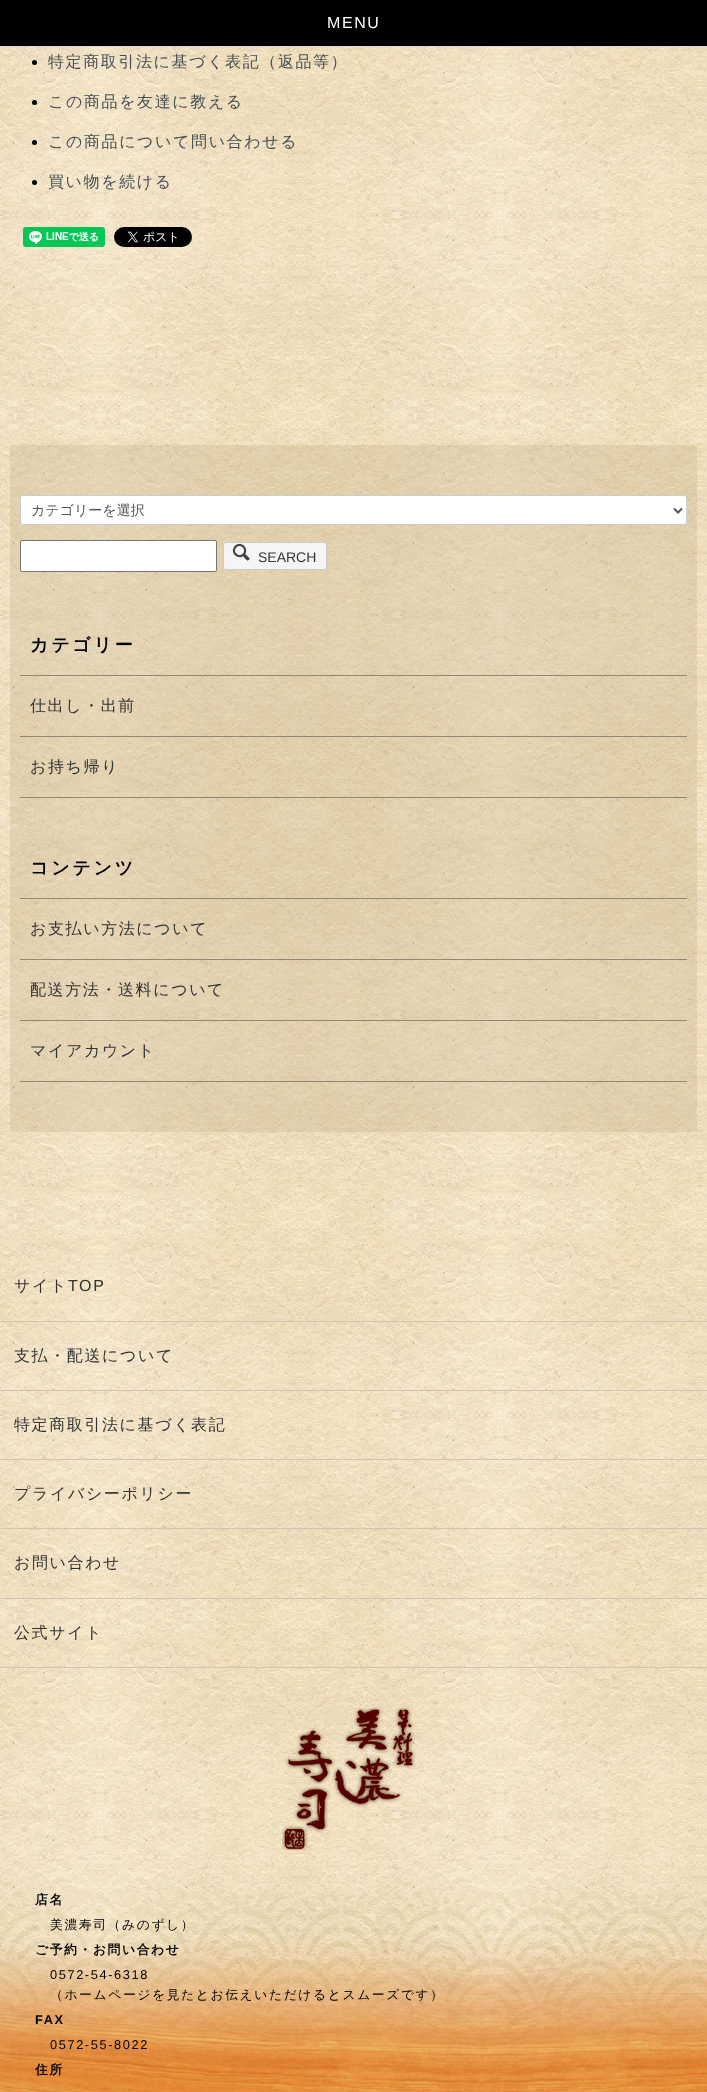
<svg xmlns="http://www.w3.org/2000/svg" width="707" height="2092" viewBox="0 0 707 2092">
  <rect width="100%" height="100%" fill="#ffffff"/>
  <image x="0" y="47" width="707" height="2022" href="img1.png"/>
  <rect x="0" y="0" width="707" height="46" fill="#000000"/>
  <rect x="0" y="46" width="707" height="1" fill="#dbdbdb"/>
  <text x="327" y="28" font-family="Liberation Sans" font-size="16" letter-spacing="1.6" fill="#ffffff">MENU</text>
  <circle cx="34.5" cy="62.5" r="2.5" fill="#000000"/>
  <text x="48" y="67" font-family="WenQuanYi Zen Hei" font-size="16" font-weight="500" letter-spacing="1.6" fill="#464e54">特定商取引法に基づく表記（返品等）</text>
  <circle cx="34.5" cy="102.5" r="2.5" fill="#000000"/>
  <text x="48" y="107" font-family="WenQuanYi Zen Hei" font-size="16" font-weight="500" letter-spacing="1.6" fill="#464e54">この商品を友達に教える</text>
  <circle cx="34.5" cy="142.5" r="2.5" fill="#000000"/>
  <text x="48" y="147" font-family="WenQuanYi Zen Hei" font-size="16" font-weight="500" letter-spacing="1.6" fill="#464e54">この商品について問い合わせる</text>
  <circle cx="34.5" cy="182.5" r="2.5" fill="#000000"/>
  <text x="48" y="187" font-family="WenQuanYi Zen Hei" font-size="16" font-weight="500" letter-spacing="1.6" fill="#464e54">買い物を続ける</text>
  <image x="23" y="227" width="82" height="20" href="img2.png"/>
  <image x="114" y="227" width="78" height="20" href="img3.png"/>
  <rect x="10" y="445" width="687" height="687" fill="#c4ae89" fill-opacity="0.3"/>
  <rect x="20.5" y="495.5" width="666" height="29" rx="2.5" fill="#ffffff" stroke="#cccccc"/>
  <path d="M674 508.5L678 512.5L682 508.5" fill="none" stroke="#555555" stroke-width="2"/>
  <text x="31" y="515" font-family="WenQuanYi Zen Hei" font-size="14" font-weight="500" fill="#555555">カテゴリーを選択</text>
  <rect x="20.5" y="540.5" width="196" height="31" rx="1.5" fill="#ffffff" stroke="#767676"/>
  <rect x="223.5" y="542.5" width="103" height="27" rx="2.5" fill="#f5f5f5" stroke="#cccccc"/>
  <image x="232" y="543" width="18" height="18" href="img4.png"/>
  <text x="258" y="562" font-family="Liberation Sans" font-size="14" fill="#333333">SEARCH</text>
  <text x="30" y="651" font-family="WenQuanYi Zen Hei" font-size="18" font-weight="bold" letter-spacing="2.75" fill="#000000">カテゴリー</text>
  <rect x="20" y="797" width="667" height="1" fill="#958671"/>
  <rect x="20" y="675" width="667" height="1" fill="#958671"/>
  <text x="30" y="711" font-family="WenQuanYi Zen Hei" font-size="16" font-weight="500" letter-spacing="1.6" fill="#333333">仕出し・出前</text>
  <rect x="20" y="736" width="667" height="1" fill="#958671"/>
  <text x="30" y="772" font-family="WenQuanYi Zen Hei" font-size="16" font-weight="500" letter-spacing="1.6" fill="#333333">お持ち帰り</text>
  <text x="30" y="874" font-family="WenQuanYi Zen Hei" font-size="18" font-weight="bold" letter-spacing="2.75" fill="#000000">コンテンツ</text>
  <rect x="20" y="1081" width="667" height="1" fill="#958671"/>
  <rect x="20" y="898" width="667" height="1" fill="#958671"/>
  <text x="30" y="934" font-family="WenQuanYi Zen Hei" font-size="16" font-weight="500" letter-spacing="1.6" fill="#333333">お支払い方法について</text>
  <rect x="20" y="959" width="667" height="1" fill="#958671"/>
  <text x="30" y="995" font-family="WenQuanYi Zen Hei" font-size="16" font-weight="500" letter-spacing="1.6" fill="#333333">配送方法・送料について</text>
  <rect x="20" y="1020" width="667" height="1" fill="#958671"/>
  <text x="30" y="1056" font-family="WenQuanYi Zen Hei" font-size="16" font-weight="500" letter-spacing="1.6" fill="#333333">マイアカウント</text>
  <image x="0" y="1892" width="707" height="200" href="img5.png"/>
  <rect x="0" y="1321" width="707" height="1" fill="#d2c4b1"/>
  <text x="14" y="1291" font-family="WenQuanYi Zen Hei" font-size="16" font-weight="500" letter-spacing="1.6" fill="#333333">サイト</text>
  <text x="68" y="1291" font-family="Liberation Sans" font-size="16" letter-spacing="1.6" fill="#333333">TOP</text>
  <rect x="0" y="1390" width="707" height="1" fill="#d2c4b1"/>
  <text x="14" y="1361" font-family="WenQuanYi Zen Hei" font-size="16" font-weight="500" letter-spacing="1.6" fill="#333333">支払・配送について</text>
  <rect x="0" y="1459" width="707" height="1" fill="#d2c4b1"/>
  <text x="14" y="1430" font-family="WenQuanYi Zen Hei" font-size="16" font-weight="500" letter-spacing="1.6" fill="#333333">特定商取引法に基づく表記</text>
  <rect x="0" y="1528" width="707" height="1" fill="#d2c4b1"/>
  <text x="14" y="1499" font-family="WenQuanYi Zen Hei" font-size="16" font-weight="500" letter-spacing="1.6" fill="#333333">プライバシーポリシー</text>
  <rect x="0" y="1598" width="707" height="1" fill="#d2c4b1"/>
  <text x="14" y="1568" font-family="WenQuanYi Zen Hei" font-size="16" font-weight="500" letter-spacing="1.6" fill="#333333">お問い合わせ</text>
  <rect x="0" y="1667" width="707" height="1" fill="#d2c4b1"/>
  <text x="14" y="1638" font-family="WenQuanYi Zen Hei" font-size="16" font-weight="500" letter-spacing="1.6" fill="#333333">公式サイト</text>
  <image x="282" y="1708" width="134" height="142" href="img6.png"/>
  <text x="35" y="1904" font-family="WenQuanYi Zen Hei" font-size="12.8" font-weight="bold" letter-spacing="1.6" fill="#000000">店名</text>
  <text x="50" y="1929" font-family="WenQuanYi Zen Hei" font-size="12.8" font-weight="500" letter-spacing="1.6" fill="#000000">美濃寿司（みのずし）</text>
  <text x="35" y="1954" font-family="WenQuanYi Zen Hei" font-size="12.8" font-weight="bold" letter-spacing="1.6" fill="#000000">ご予約・お問い合わせ</text>
  <text x="50" y="1979" font-family="Liberation Sans" font-size="12.8" letter-spacing="1.6" fill="#000000">0572-54-6318</text>
  <text x="50" y="1999" font-family="WenQuanYi Zen Hei" font-size="12.8" font-weight="500" letter-spacing="1.6" fill="#000000">（ホームページを見たとお伝えいただけるとスムーズです）</text>
  <text x="35" y="2024" font-family="Liberation Sans" font-size="12.8" font-weight="bold" letter-spacing="1.6" fill="#000000">FAX</text>
  <text x="50" y="2049" font-family="Liberation Sans" font-size="12.8" letter-spacing="1.6" fill="#000000">0572-55-8022</text>
  <text x="35" y="2074" font-family="WenQuanYi Zen Hei" font-size="12.8" font-weight="bold" letter-spacing="1.6" fill="#000000">住所</text>
</svg>
